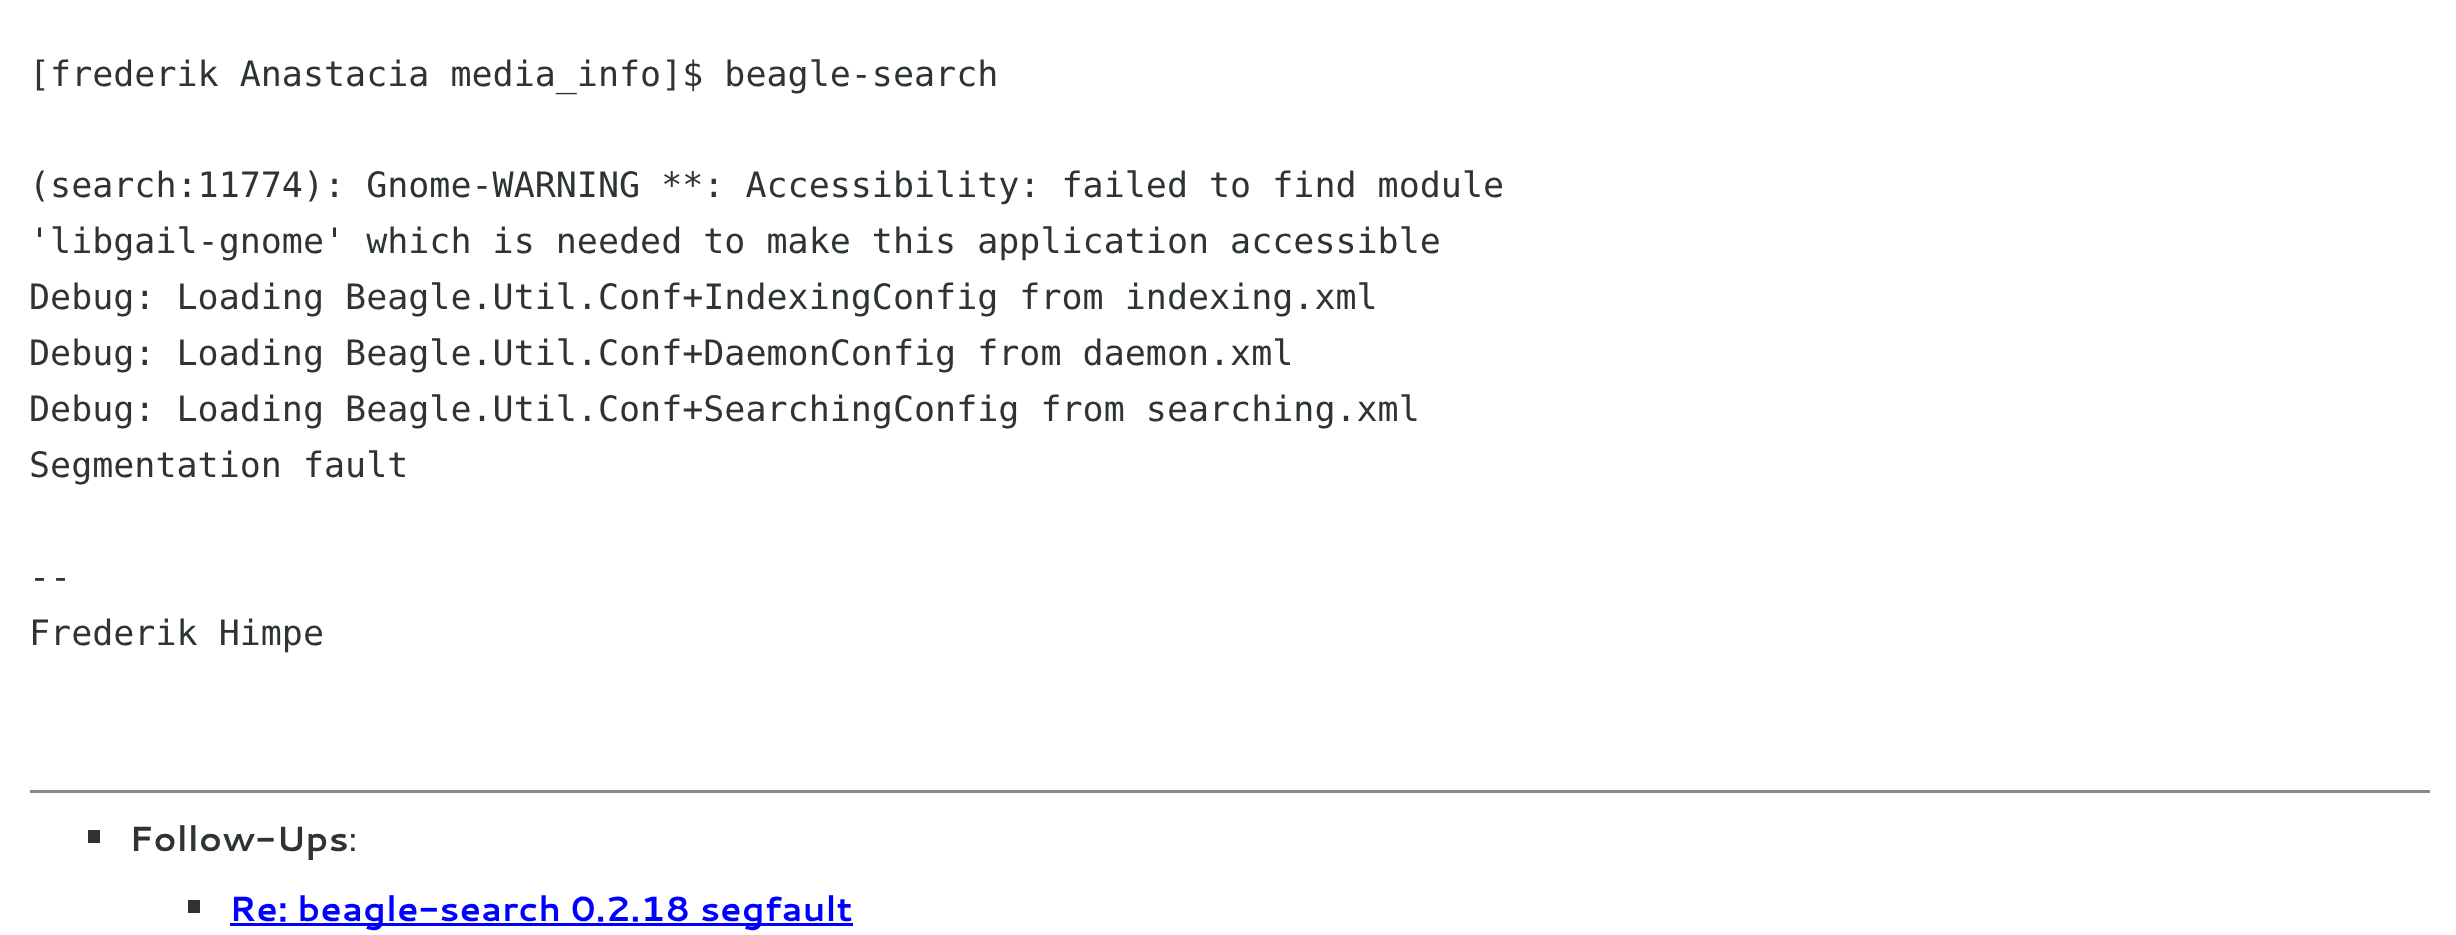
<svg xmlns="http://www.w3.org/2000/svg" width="2456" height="935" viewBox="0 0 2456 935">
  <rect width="100%" height="100%" fill="#ffffff"/>
  <text x="29" y="86" font-family="DejaVu Sans Mono" font-size="35" fill="#2e3436">[frederik Anastacia media_info]$ beagle-search</text>
  <text x="29" y="197" font-family="DejaVu Sans Mono" font-size="35" fill="#2e3436">(search:11774): Gnome-WARNING **: Accessibility: failed to find module</text>
  <text x="29" y="253" font-family="DejaVu Sans Mono" font-size="35" fill="#2e3436">'libgail-gnome' which is needed to make this application accessible</text>
  <text x="29" y="309" font-family="DejaVu Sans Mono" font-size="35" fill="#2e3436">Debug: Loading Beagle.Util.Conf+IndexingConfig from indexing.xml</text>
  <text x="29" y="365" font-family="DejaVu Sans Mono" font-size="35" fill="#2e3436">Debug: Loading Beagle.Util.Conf+DaemonConfig from daemon.xml</text>
  <text x="29" y="421" font-family="DejaVu Sans Mono" font-size="35" fill="#2e3436">Debug: Loading Beagle.Util.Conf+SearchingConfig from searching.xml</text>
  <text x="29" y="477" font-family="DejaVu Sans Mono" font-size="35" fill="#2e3436">Segmentation fault</text>
  <text x="29" y="589" font-family="DejaVu Sans Mono" font-size="35" fill="#2e3436">--</text>
  <text x="29" y="645" font-family="DejaVu Sans Mono" font-size="35" fill="#2e3436">Frederik Himpe</text>
  <rect x="30" y="790" width="2400" height="3" fill="#888888"/>
  <rect x="88" y="830" width="12" height="13" fill="#2e3436"/>
  <text x="129" y="851" font-family="Cantarell" font-size="35" font-weight="bold" fill="#2e3436">Follow-Ups</text>
  <text x="348" y="851" font-family="Cantarell" font-size="35" fill="#2e3436">:</text>
  <rect x="188" y="900" width="12" height="13" fill="#2e3436"/>
  <rect x="230" y="923" width="623" height="3" fill="#0000ff"/>
  <text x="229" y="921" font-family="Cantarell" font-size="35" font-weight="bold" fill="#0000ff">Re: beagle-search 0.2.18 segfault</text>
</svg>
